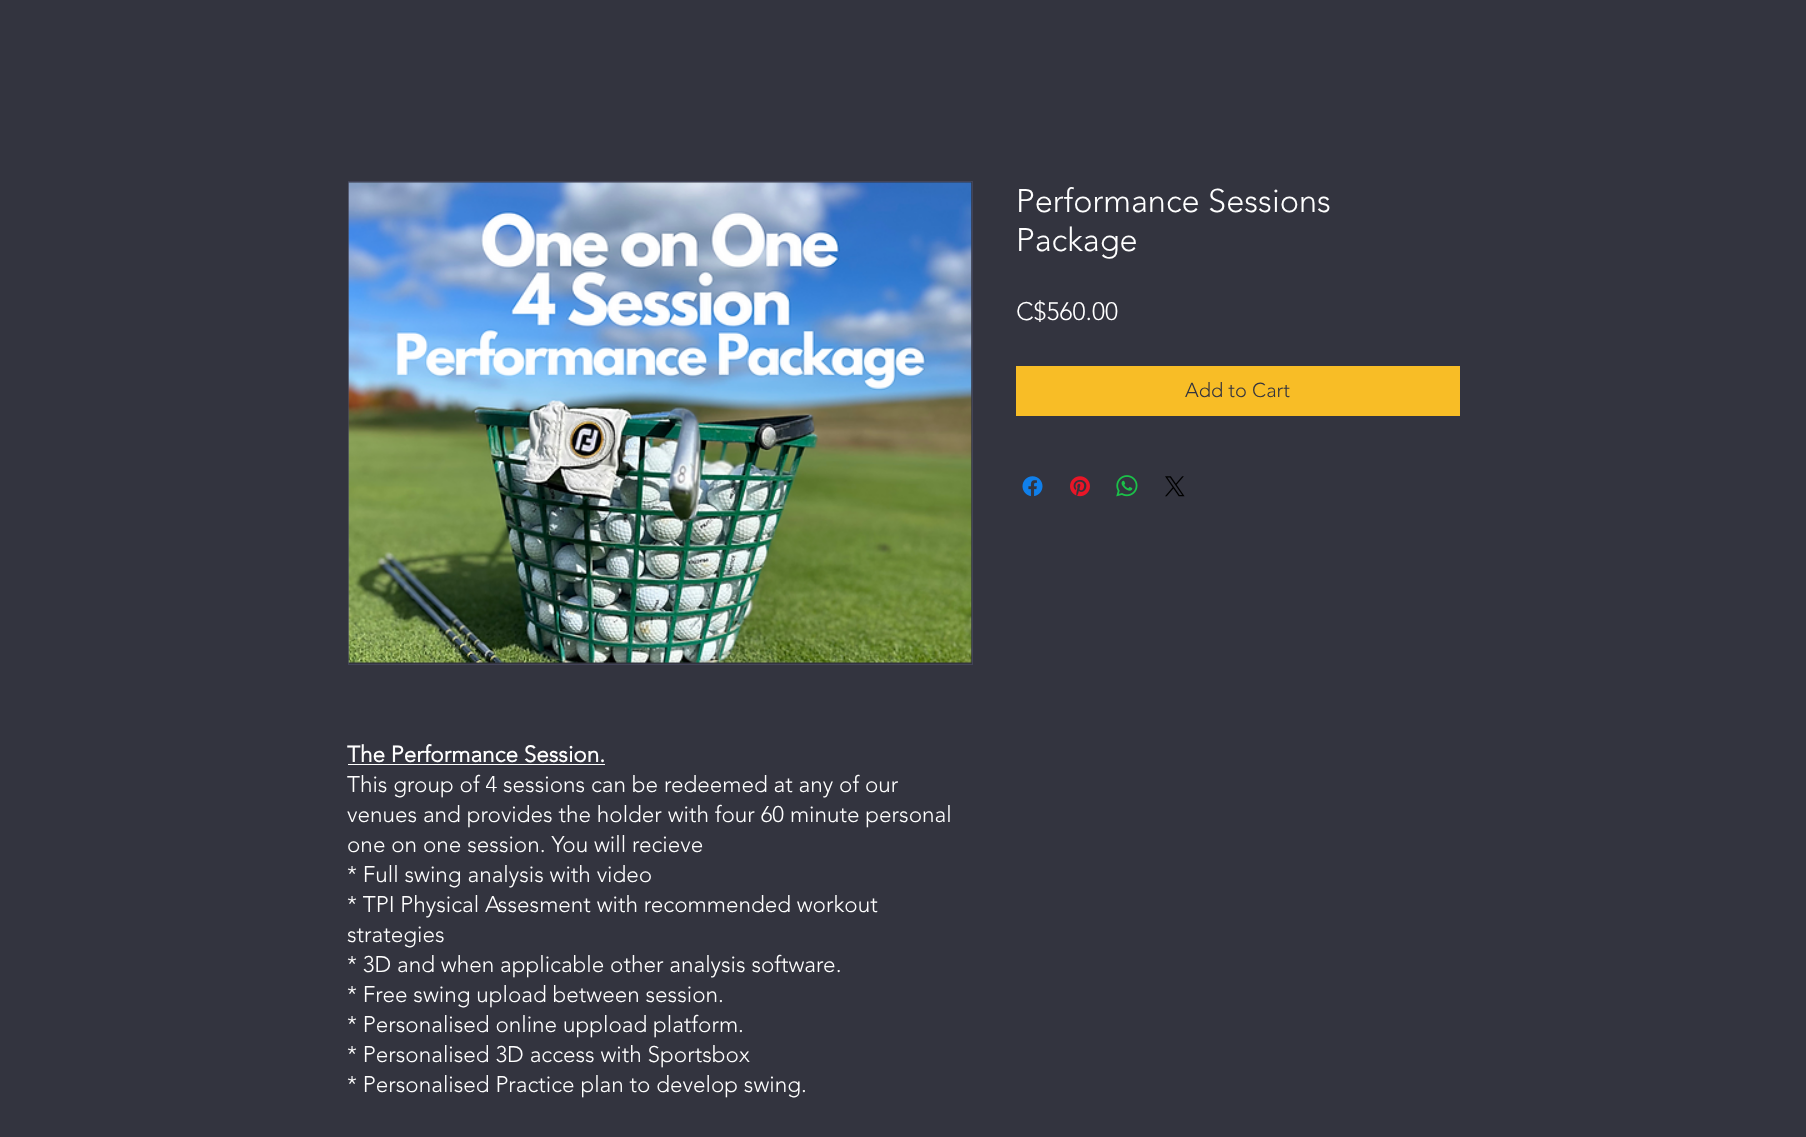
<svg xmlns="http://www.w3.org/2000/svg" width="1806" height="1137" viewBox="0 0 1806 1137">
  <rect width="100%" height="100%" fill="#33343f"/>
  <text x="1016" y="212" font-family="'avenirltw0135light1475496'" font-size="32.5" font-weight="300" fill="#ffffff">Performance Sessions</text>
  <text x="1016" y="251" font-family="'avenirltw0135light1475496'" font-size="32.5" font-weight="300" fill="#ffffff">Package</text>
  <text x="1016" y="320" font-family="'avenirltw0135light1475496'" font-size="25" font-weight="300" fill="#ffffff">C$560.00</text>
  <rect x="1016" y="366" width="444" height="50" fill="#f8bd26"/>
  <text x="1185" y="397" font-family="'avenirltw0135light1475496'" font-size="20" font-weight="300" fill="#33343f">Add to Cart</text>
  <image x="1022" y="476" width="21" height="21" href="img1.png"/>
  <image x="1070" y="476" width="20" height="21" href="img2.png"/>
  <image x="1116" y="475" width="22" height="22" href="img3.png"/>
  <image x="1165" y="476" width="20" height="21" href="img4.png"/>
  <rect x="348.5" y="181.5" width="624" height="483" fill="none" stroke="#434459"/>
  <image x="348" y="182" width="624" height="481" href="img5.png"/>
  <text x="347" y="762" font-family="'avenirltw0135light1475496'" font-size="22.5" font-weight="bold" fill="#ffffff">The Performance Session.</text>
  <rect x="348" y="764" width="257" height="1" fill="#ffffff"/>
  <text x="347" y="792" font-family="'avenirltw0135light1475496'" font-size="22.5" font-weight="300" fill="#ffffff">This group of 4 sessions can be redeemed at any of our</text>
  <text x="347" y="822" font-family="'avenirltw0135light1475496'" font-size="22.5" font-weight="300" fill="#ffffff">venues and provides the holder with four 60 minute personal</text>
  <text x="347" y="852" font-family="'avenirltw0135light1475496'" font-size="22.5" font-weight="300" fill="#ffffff">one on one session. You will recieve</text>
  <text x="347" y="882" font-family="'avenirltw0135light1475496'" font-size="22.5" font-weight="300" fill="#ffffff">* Full swing analysis with video</text>
  <text x="347" y="912" font-family="'avenirltw0135light1475496'" font-size="22.5" font-weight="300" fill="#ffffff">* TPI Physical Assesment with recommended workout</text>
  <text x="347" y="942" font-family="'avenirltw0135light1475496'" font-size="22.5" font-weight="300" fill="#ffffff">strategies</text>
  <text x="347" y="972" font-family="'avenirltw0135light1475496'" font-size="22.5" font-weight="300" fill="#ffffff">* 3D and when applicable other analysis software.</text>
  <text x="347" y="1002" font-family="'avenirltw0135light1475496'" font-size="22.5" font-weight="300" fill="#ffffff">* Free swing upload between session.</text>
  <text x="347" y="1032" font-family="'avenirltw0135light1475496'" font-size="22.5" font-weight="300" fill="#ffffff">* Personalised online uppload platform.</text>
  <text x="347" y="1062" font-family="'avenirltw0135light1475496'" font-size="22.5" font-weight="300" fill="#ffffff">* Personalised 3D access with Sportsbox</text>
  <text x="347" y="1092" font-family="'avenirltw0135light1475496'" font-size="22.5" font-weight="300" fill="#ffffff">* Personalised Practice plan to develop swing.</text>
</svg>
